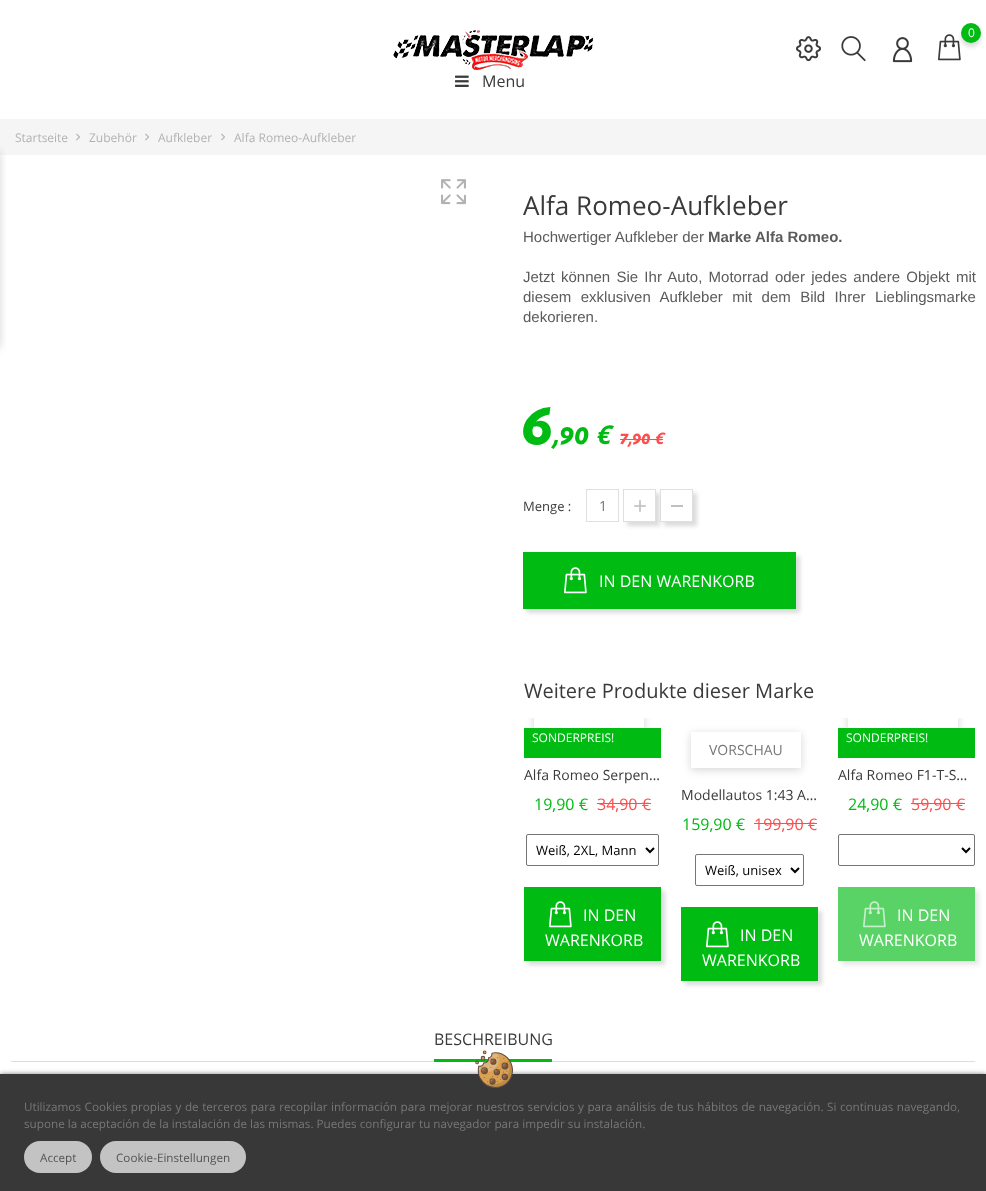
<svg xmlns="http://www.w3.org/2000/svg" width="986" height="1191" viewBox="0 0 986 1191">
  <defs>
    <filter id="blur1" x="-50%" y="-200%" width="200%" height="500%"><feGaussianBlur stdDeviation="2"/></filter>
    <filter id="blur2" x="-50%" y="-200%" width="200%" height="500%"><feGaussianBlur stdDeviation="4"/></filter>
    <clipPath id="clip1"><path d="M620 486H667V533H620ZM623 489H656V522H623Z" clip-rule="evenodd"/></clipPath>
    <clipPath id="clip2"><rect x="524" y="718" width="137" height="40"/></clipPath>
    <clipPath id="clip3"><path d="M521 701H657V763H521ZM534 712H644V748H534Z" clip-rule="evenodd"/></clipPath>
    <clipPath id="clip4"><path d="M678 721H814V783H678ZM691 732H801V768H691Z" clip-rule="evenodd"/></clipPath>
    <clipPath id="clip5"><rect x="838" y="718" width="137" height="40"/></clipPath>
    <clipPath id="clip6"><path d="M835 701H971V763H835ZM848 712H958V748H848Z" clip-rule="evenodd"/></clipPath>
    <filter id="blur3" x="-50%" y="-200%" width="200%" height="500%"><feGaussianBlur stdDeviation="2.5"/></filter>
  </defs>
  <rect width="100%" height="100%" fill="#ffffff"/>
  <image x="393" y="30" width="200" height="40" href="img1.png"/>
  <image x="796" y="36" width="25" height="26" href="img2.png"/>
  <image x="841" y="36" width="25" height="26" href="img3.png"/>
  <image x="892" y="37" width="21" height="26" href="img4.png"/>
  <image x="938" y="34" width="23" height="27" href="img5.png"/>
  <rect x="961" y="27" width="20" height="20" rx="10" fill="#000000" fill-opacity="0.14" filter="url(#blur1)"/>
  <circle cx="971" cy="33" r="10" fill="#00bb12"/>
  <text x="968" y="37" font-family="Open Sans" font-size="12" fill="#ffffff">0</text>
  <image x="455" y="75" width="14" height="12" href="img6.png"/>
  <text x="482" y="87" font-family="Open Sans" font-size="16" fill="#3a3a3a">Menu</text>
  <rect x="0" y="119" width="986" height="36" fill="#f5f5f5"/>
  <text x="15" y="142" font-family="Open Sans" font-size="12" fill="#b2b2b2">Startseite</text>
  <image x="76" y="133" width="4" height="8" href="img7.png"/>
  <text x="89" y="142" font-family="Open Sans" font-size="12" fill="#b2b2b2">Zubehör</text>
  <image x="145" y="133" width="4" height="8" href="img7.png"/>
  <text x="158" y="142" font-family="Open Sans" font-size="12" fill="#b2b2b2">Aufkleber</text>
  <image x="221" y="133" width="4" height="8" href="img7.png"/>
  <text x="234" y="142" font-family="Open Sans" font-size="12" fill="#b2b2b2">Alfa Romeo-Aufkleber</text>
  <rect x="-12" y="152" width="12" height="196" fill="#000000" fill-opacity="0.16" filter="url(#blur2)"/>
  <image x="441" y="179" width="25" height="26" href="img8.png"/>
  <text x="523" y="215" font-family="Open Sans" font-size="26" fill="#3a3a3a">Alfa Romeo-Aufkleber</text>
  <text x="523" y="242" font-family="Liberation Sans" font-size="15" fill="#5b5b5c">Hochwertiger Aufkleber der</text>
  <text x="708" y="242" font-family="Liberation Sans" font-size="15" font-weight="bold" fill="#5b5b5c">Marke Alfa Romeo.</text>
  <text x="523" y="282" word-spacing="2.1" font-family="Liberation Sans" font-size="15" fill="#5b5b5c">Jetzt können Sie Ihr Auto, Motorrad oder jedes andere Objekt mit</text>
  <text x="523" y="302" word-spacing="5.25" font-family="Liberation Sans" font-size="15" fill="#5b5b5c">diesem exklusiven Aufkleber mit dem Bild Ihrer Lieblingsmarke</text>
  <text x="523" y="322" font-family="Liberation Sans" font-size="15" fill="#5b5b5c">dekorieren.</text>
  <text x="523" y="444" font-family="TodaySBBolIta" font-size="56" font-weight="500" font-style="italic" fill="#00bb12">6</text>
  <text x="554" y="444" font-family="TodaySBBolIta" font-size="26" font-weight="500" font-style="italic" fill="#00bb12">,90</text>
  <text x="595" y="444" font-family="Open Sans" font-size="26" font-weight="bold" font-style="italic" fill="#00bb12">€</text>
  <text x="620" y="444" font-family="TodaySBBolIta" font-size="16" font-weight="500" font-style="italic" fill="#ff4c4c">7,90</text>
  <rect x="620" y="439" width="43" height="1" fill="#ff4c4c"/>
  <text x="654" y="444" font-family="Open Sans" font-size="16" font-weight="bold" font-style="italic" fill="#ff4c4c">€</text>
  <text x="523" y="511" font-family="Open Sans" font-size="13" fill="#3a3a3a">Menge :</text>
  <rect x="586.5" y="489.5" width="32" height="32" fill="none" stroke="#dfdfdf"/>
  <text x="599" y="511" font-family="Open Sans" font-size="14" fill="#777777">1</text>
  <g clip-path="url(#clip1)">
    <rect x="627" y="493" width="33" height="33" fill="#000000" fill-opacity="0.14" filter="url(#blur1)"/>
  </g>
  <rect x="623.5" y="489.5" width="32" height="32" fill="none" stroke="#dfdfdf"/>
  <image x="634" y="500" width="12" height="12" href="img9.png"/>
  <rect x="664" y="493" width="33" height="33" fill="#000000" fill-opacity="0.14" filter="url(#blur1)"/>
  <rect x="660.5" y="489.5" width="32" height="32" fill="#ffffff" stroke="#dfdfdf"/>
  <rect x="671" y="505" width="12" height="2" fill="#c0c0c0"/>
  <rect x="527" y="556" width="273" height="57" fill="#000000" fill-opacity="0.14" filter="url(#blur1)"/>
  <rect x="523" y="552" width="273" height="57" fill="#00bb12"/>
  <image x="564" y="567" width="23" height="27" href="img10.png"/>
  <text x="599" y="587" font-family="Open Sans" font-size="16" fill="#ffffff">IN DEN WARENKORB</text>
  <text x="524" y="698" font-family="Open Sans" font-size="20" fill="#3a3a3a">Weitere Produkte dieser Marke</text>
  <g clip-path="url(#clip2)">
    <g clip-path="url(#clip3)">
      <rect x="534" y="714" width="110" height="36" fill="#000000" fill-opacity="0.16" filter="url(#blur2)"/>
    </g>
  </g>
  <rect x="524" y="728" width="137" height="30" fill="#00bb12"/>
  <text x="532" y="742" font-family="Open Sans" font-size="12" fill="#ffffff">SONDERPREIS!</text>
  <text x="524" y="780" font-family="Open Sans" font-size="14" fill="#3a3a3a">Alfa Romeo Serpen…</text>
  <text x="534" y="810" font-family="Open Sans" font-size="16" fill="#00bb12">19,90 €</text>
  <text x="597" y="810" font-family="Open Sans" font-size="16" fill="#ff4c4c">34,90 €</text>
  <rect x="597" y="803" width="54" height="1" fill="#ff4c4c"/>
  <rect x="526.5" y="834.5" width="132" height="31" rx="1.5" fill="none" stroke="#767676"/>
  <path d="M646 848L650 852L654 848" fill="none" stroke="#000000" stroke-width="2"/>
  <text x="536" y="855" font-family="Open Sans" font-size="13" fill="#000000">Weiß, 2XL, Mann</text>
  <rect x="528" y="891" width="137" height="74" fill="#000000" fill-opacity="0.14" filter="url(#blur1)"/>
  <rect x="524" y="887" width="137" height="74" fill="#00bb12"/>
  <image x="549" y="901" width="23" height="27" href="img10.png"/>
  <text x="583" y="921" font-family="Open Sans" font-size="16" fill="#ffffff">IN DEN</text>
  <text x="545" y="946" font-family="Open Sans" font-size="16" fill="#ffffff">WARENKORB</text>
  <g clip-path="url(#clip4)">
    <rect x="691" y="734" width="110" height="36" fill="#000000" fill-opacity="0.16" filter="url(#blur2)"/>
  </g>
  <text x="709" y="755" font-family="Open Sans" font-size="14" fill="#777777">VORSCHAU</text>
  <text x="681" y="800" font-family="Open Sans" font-size="14" fill="#3a3a3a">Modellautos 1:43 A…</text>
  <text x="682" y="830" font-family="Open Sans" font-size="16" fill="#00bb12">159,90 €</text>
  <text x="754" y="830" font-family="Open Sans" font-size="16" fill="#ff4c4c">199,90 €</text>
  <rect x="754" y="823" width="63" height="1" fill="#ff4c4c"/>
  <rect x="695.5" y="854.5" width="108" height="31" rx="1.5" fill="none" stroke="#767676"/>
  <path d="M791 868L795 872L799 868" fill="none" stroke="#000000" stroke-width="2"/>
  <text x="705" y="875" font-family="Open Sans" font-size="13" fill="#000000">Weiß, unisex</text>
  <rect x="685" y="911" width="137" height="74" fill="#000000" fill-opacity="0.14" filter="url(#blur1)"/>
  <rect x="681" y="907" width="137" height="74" fill="#00bb12"/>
  <image x="706" y="921" width="23" height="27" href="img10.png"/>
  <text x="740" y="941" font-family="Open Sans" font-size="16" fill="#ffffff">IN DEN</text>
  <text x="702" y="966" font-family="Open Sans" font-size="16" fill="#ffffff">WARENKORB</text>
  <g clip-path="url(#clip5)">
    <g clip-path="url(#clip6)">
      <rect x="848" y="714" width="110" height="36" fill="#000000" fill-opacity="0.16" filter="url(#blur2)"/>
    </g>
  </g>
  <rect x="838" y="728" width="137" height="30" fill="#00bb12"/>
  <text x="846" y="742" font-family="Open Sans" font-size="12" fill="#ffffff">SONDERPREIS!</text>
  <text x="838" y="780" font-family="Open Sans" font-size="14" fill="#3a3a3a">Alfa Romeo F1-T-S…</text>
  <text x="848" y="810" font-family="Open Sans" font-size="16" fill="#00bb12">24,90 €</text>
  <text x="911" y="810" font-family="Open Sans" font-size="16" fill="#ff4c4c">59,90 €</text>
  <rect x="911" y="803" width="54" height="1" fill="#ff4c4c"/>
  <rect x="838.5" y="834.5" width="136" height="31" rx="1.5" fill="none" stroke="#767676"/>
  <path d="M962 848L966 852L970 848" fill="none" stroke="#000000" stroke-width="2"/>
  <rect x="842" y="891" width="137" height="74" fill="#595959" fill-opacity="0.14" filter="url(#blur1)"/>
  <rect x="838" y="887" width="137" height="74" fill="#59d365"/>
  <image x="863" y="901" width="23" height="27" href="img11.png"/>
  <text x="897" y="921" font-family="Open Sans" font-size="16" fill="#ffffff">IN DEN</text>
  <text x="859" y="946" font-family="Open Sans" font-size="16" fill="#ffffff">WARENKORB</text>
  <path d="M976 1062H10L12 1061H974Z" fill="#dedede"/>
  <text x="434" y="1045" font-family="Open Sans" font-size="16" fill="#3a3a3a">BESCHREIBUNG</text>
  <rect x="434" y="1059" width="118" height="3" fill="#00bb12"/>
  <rect x="0" y="1074" width="986" height="117" fill="#000000" fill-opacity="0.5" filter="url(#blur3)"/>
  <rect x="0" y="1074" width="986" height="117" fill="#383838"/>
  <image x="475" y="1050" width="38" height="38" href="img12.png"/>
  <text x="24" y="1111" word-spacing="0.5" font-family="Open Sans" font-size="11.7" fill="#777777">Utilizamos Cookies propias y de terceros para recopilar información para mejorar nuestros servicios y para análisis de tus hábitos de navegación. Si continuas navegando,</text>
  <text x="24" y="1128" font-family="Open Sans" font-size="11.7" fill="#777777">supone la aceptación de la instalación de las mismas. Puedes configurar tu navegador para impedir su instalación.</text>
  <rect x="24" y="1141" width="68" height="32" rx="16" fill="#c3c3c3"/>
  <text x="40" y="1162" font-family="Open Sans" font-size="11.7" fill="#535353">Accept</text>
  <rect x="100" y="1141" width="146" height="32" rx="16" fill="#c3c3c3"/>
  <text x="116" y="1162" font-family="Open Sans" font-size="11.7" fill="#535353">Cookie-Einstellungen</text>
</svg>
